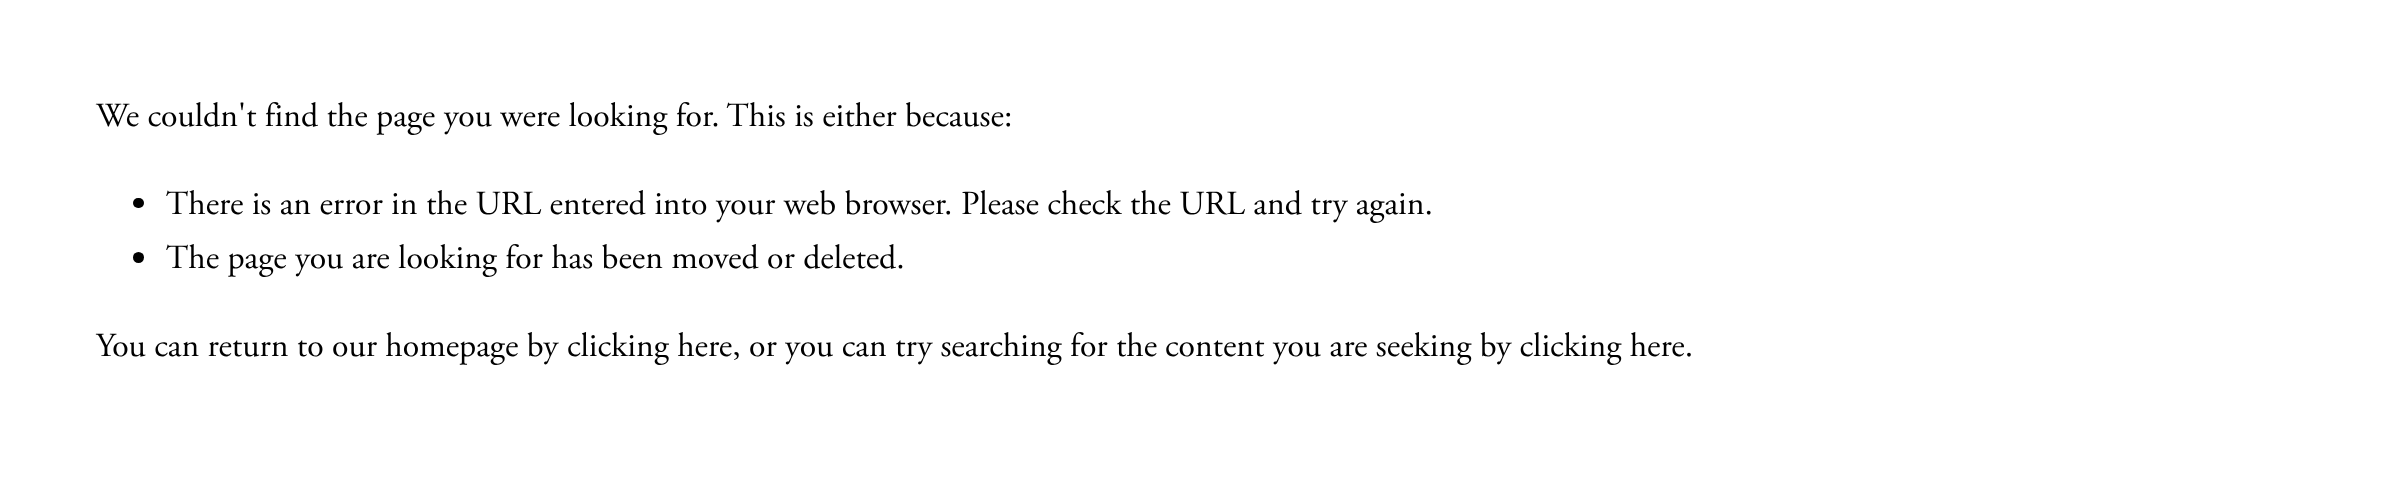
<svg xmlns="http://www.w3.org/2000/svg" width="2402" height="487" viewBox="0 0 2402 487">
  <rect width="100%" height="100%" fill="#ffffff"/>
  <text x="96" y="126" font-family="Adobe Garamond" font-size="33.75" fill="#000000">We couldn't find the page you were looking for. This is either because:</text>
  <rect x="133" y="198" width="11" height="10" rx="5" fill="#000000"/>
  <text x="166" y="214" font-family="Adobe Garamond" font-size="33.75" fill="#000000">There is an error in the URL entered into your web browser. Please check the URL and try again.</text>
  <circle cx="138.5" cy="257.5" r="5.5" fill="#000000"/>
  <text x="166" y="268" font-family="Adobe Garamond" font-size="33.75" fill="#000000">The page you are looking for has been moved or deleted.</text>
  <text x="96" y="356" font-family="Adobe Garamond" font-size="33.75" fill="#000000">You can return to our homepage by</text>
  <text x="567" y="356" font-family="Adobe Garamond" font-size="33.75" fill="#000000">clicking here, or you can try searching for the</text>
  <text x="1165" y="356" font-family="Adobe Garamond" font-size="33.75" fill="#000000">content you are seeking by clicking here.</text>
</svg>
